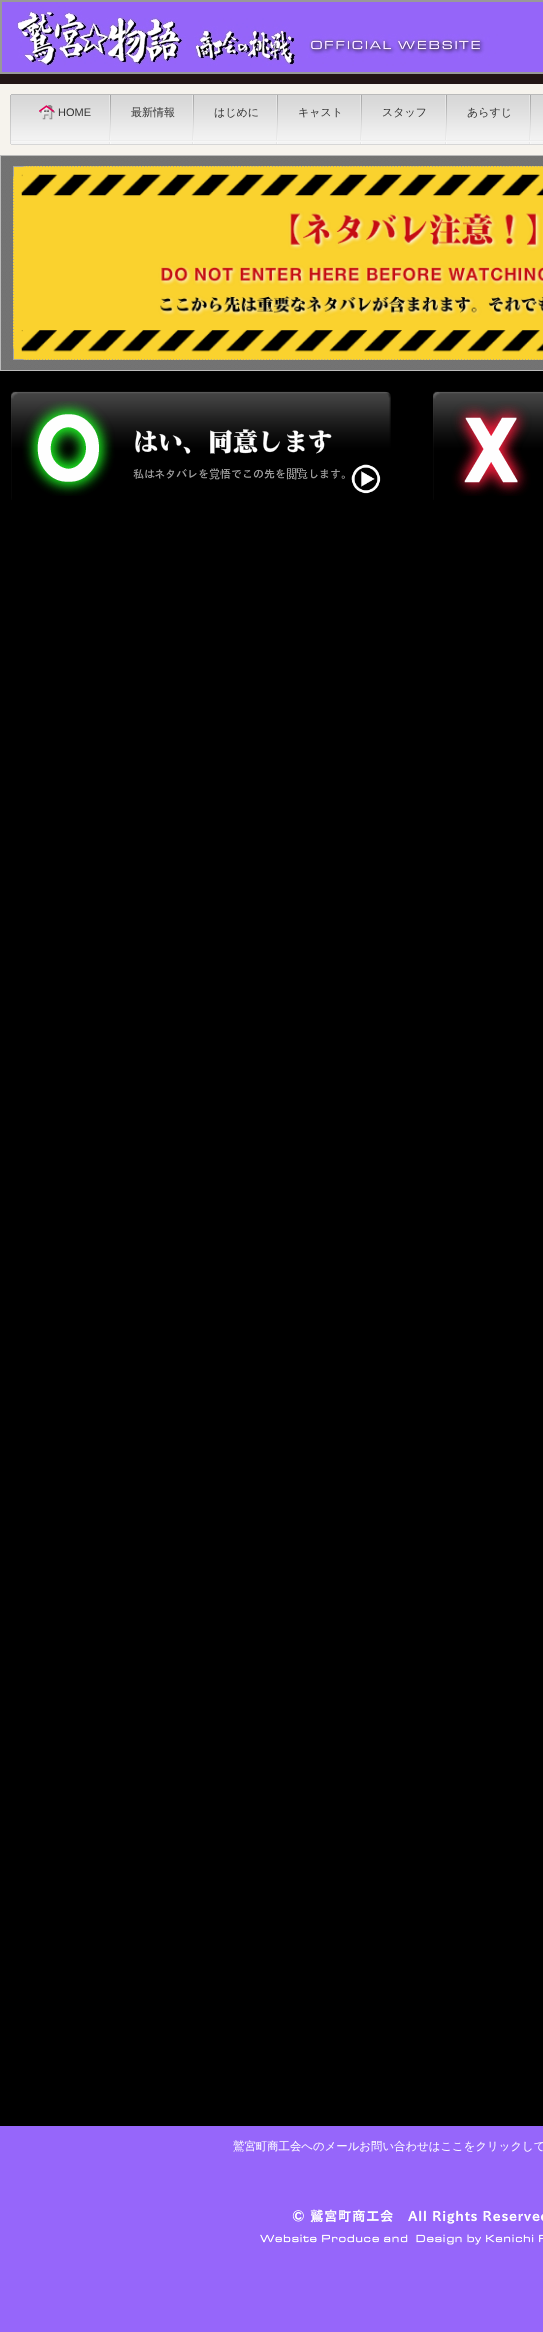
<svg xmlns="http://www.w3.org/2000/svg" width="543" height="2332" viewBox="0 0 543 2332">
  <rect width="100%" height="100%" fill="#000000"/>
  <rect x="0" y="74" width="543" height="10" fill="#221515"/>
  <rect x="0" y="0" width="543" height="74" fill="#999999"/>
  <image x="2" y="2" width="541" height="70" href="img1.png"/>
  <rect x="0" y="84" width="543" height="71" fill="#f6f3ed"/>
  <image x="10" y="94" width="6" height="51" href="img2.png"/>
  <image x="16" y="94" width="527" height="51" href="img3.png"/>
  <image x="109" y="95" width="2" height="49" href="img4.png"/>
  <image x="39" y="105" width="16" height="15" href="img5.png"/>
  <text x="58" y="116" font-family="Liberation Sans" font-size="11" fill="#333333">HOME</text>
  <image x="192" y="95" width="2" height="49" href="img6.png"/>
  <text x="131" y="116" font-family="WenQuanYi Zen Hei" font-size="11" font-weight="500" fill="#333333">最新情報</text>
  <image x="276" y="95" width="2" height="49" href="img6.png"/>
  <text x="214" y="116" font-family="WenQuanYi Zen Hei" font-size="11" font-weight="500" fill="#333333">はじめに</text>
  <image x="360" y="95" width="2" height="49" href="img6.png"/>
  <text x="298" y="116" font-family="WenQuanYi Zen Hei" font-size="11" font-weight="500" fill="#333333">キャスト</text>
  <image x="445" y="95" width="2" height="49" href="img4.png"/>
  <text x="382" y="116" font-family="WenQuanYi Zen Hei" font-size="11" font-weight="500" fill="#333333">スタッフ</text>
  <image x="529" y="95" width="2" height="49" href="img6.png"/>
  <text x="467" y="116" font-family="WenQuanYi Zen Hei" font-size="11" font-weight="500" fill="#333333">あらすじ</text>
  <rect x="0" y="155" width="543" height="1" fill="#bbbbbb"/>
  <rect x="0" y="370" width="543" height="1" fill="#bbbbbb"/>
  <rect x="0" y="155" width="1" height="216" fill="#bbbbbb"/>
  <image x="1" y="156" width="542" height="214" href="img7.png"/>
  <image x="13" y="166" width="530" height="194" href="img8.png"/>
  <image x="11" y="391" width="380" height="109" href="img9.png"/>
  <image x="433" y="391" width="110" height="109" href="img10.png"/>
  <rect x="0" y="2126" width="543" height="206" fill="#9666fa"/>
  <text x="233" y="2150" font-family="WenQuanYi Zen Hei" font-size="11.4" font-weight="500" fill="#ffffff">鷲宮町商工会へのメールお問い合わせはここをクリックして</text>
  <image x="260" y="2209" width="283" height="36" href="img11.png"/>
</svg>
